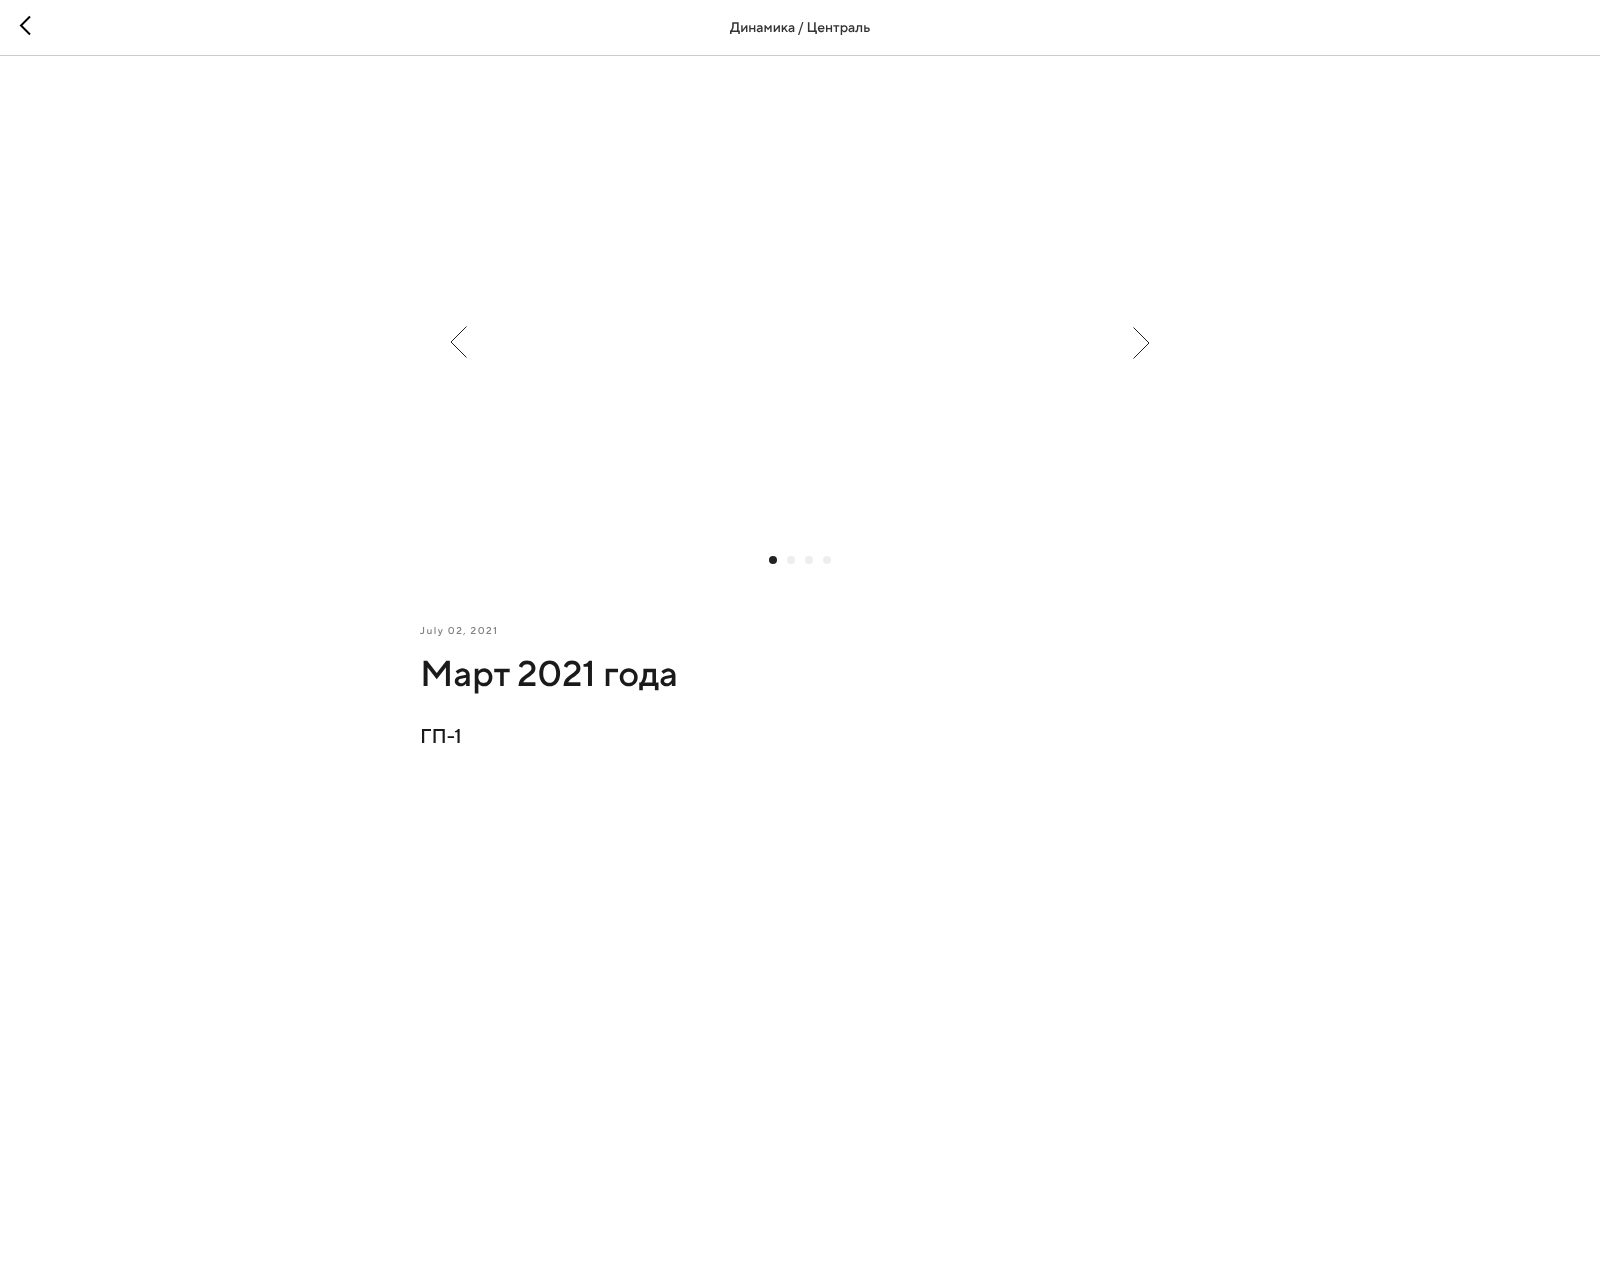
<svg xmlns="http://www.w3.org/2000/svg" width="1600" height="1286" viewBox="0 0 1600 1286">
  <rect width="100%" height="100%" fill="#ffffff"/>
  <rect x="0" y="55" width="1600" height="1" fill="#cccccc"/>
  <path d="M30 34.5L21 25.5L30 16.5" fill="none" stroke="#000000" stroke-width="2"/>
  <text x="730" y="32" font-family="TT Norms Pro" font-size="14" font-weight="500" fill="#333333">Динамика / Централь</text>
  <path d="M466.5 357.5L451 342L466.5 326.5" fill="none" stroke="#222222"/>
  <path d="M1133.5 327.5L1149 343L1133.5 358.5" fill="none" stroke="#222222"/>
  <circle cx="773" cy="560" r="4" fill="#222222"/>
  <circle cx="791" cy="560" r="4" fill="#eeeeee"/>
  <circle cx="809" cy="560" r="4" fill="#eeeeee"/>
  <circle cx="827" cy="560" r="4" fill="#eeeeee"/>
  <text x="420" y="634" font-family="TT Norms Pro" font-size="10" font-weight="500" letter-spacing="1.5" fill="#808080">July 02, 2021</text>
  <text x="420" y="686" font-family="TT Norms Pro" font-size="36" font-weight="500" fill="#1a1a1a">Март 2021 года</text>
  <text x="420" y="743" font-family="TT Norms Pro" font-size="20" font-weight="500" fill="#1a1a1a">ГП-1</text>
</svg>
